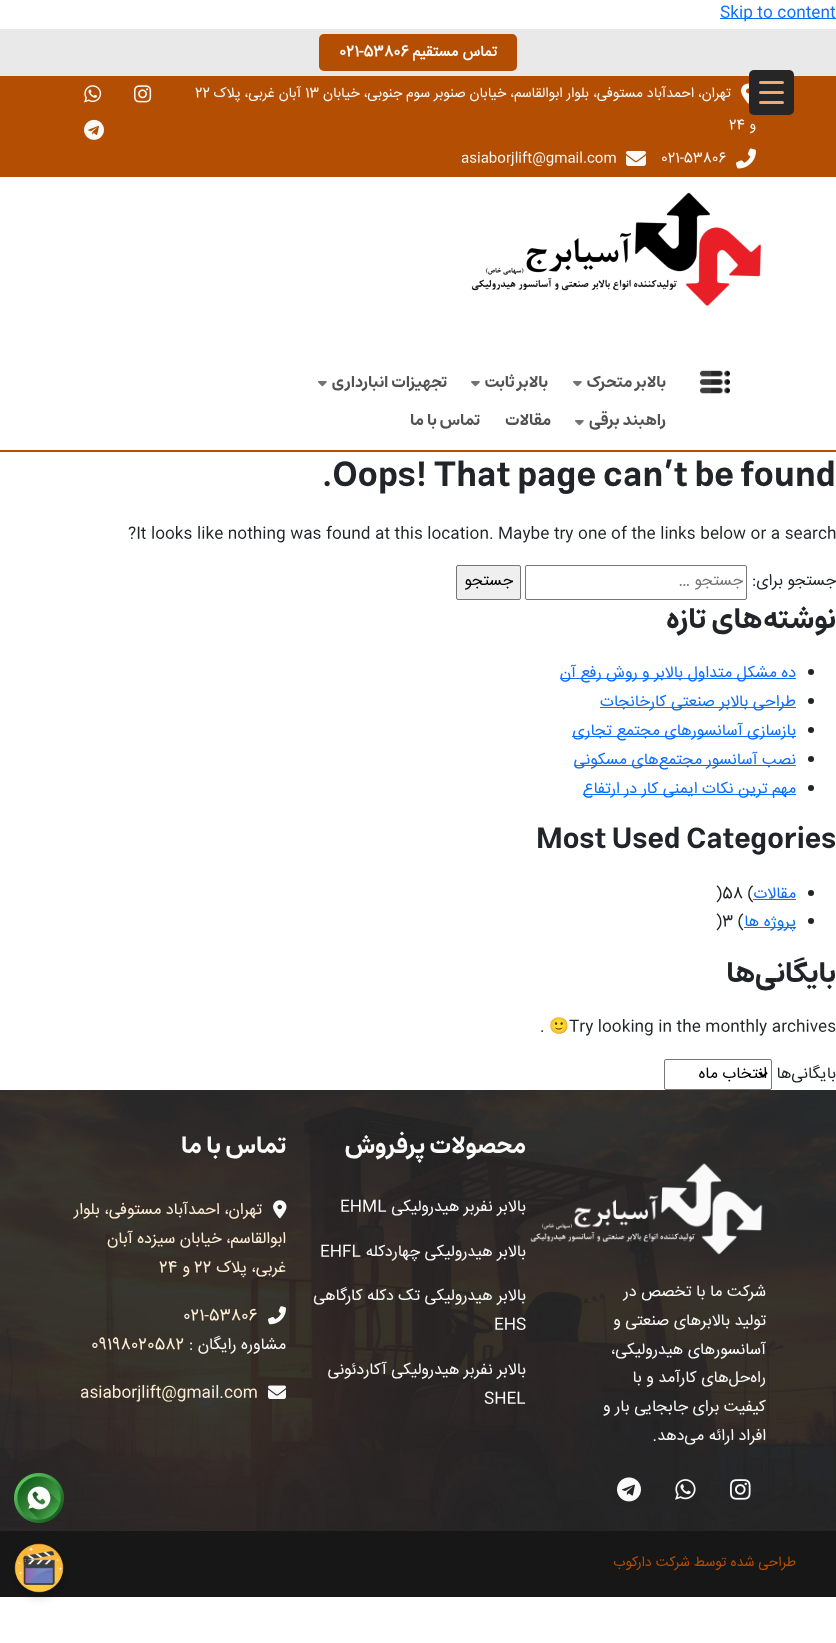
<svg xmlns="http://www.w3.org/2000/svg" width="836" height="1643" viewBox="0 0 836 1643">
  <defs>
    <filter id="blur1" x="-50%" y="-200%" width="200%" height="500%"><feGaussianBlur stdDeviation="4"/></filter>
  </defs>
  <rect width="100%" height="100%" fill="#ffffff"/>
  <rect x="720" y="18" width="116" height="1" fill="#0d6efd"/>
  <text x="720" y="17" font-family="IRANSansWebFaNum" font-size="16" fill="#0d6efd">Skip to content</text>
  <rect x="0" y="29" width="836" height="47" fill="#e9e9e9"/>
  <rect x="319" y="34" width="198" height="37" rx="5" fill="#b34e02"/>
  <text x="497" y="56" font-family="IRANSansWebFaNum" font-size="15" font-weight="bold" direction="rtl" fill="#fafafa">تماس مستقیم</text>
  <text x="339" y="56" font-family="IRANSansWebFaNum" font-size="15" font-weight="bold" fill="#fafafa">021-53806</text>
  <rect x="0" y="76" width="836" height="101" fill="#b34e02"/>
  <image x="741" y="83" width="8" height="21" href="img1.png"/>
  <text x="731" y="97" font-family="IRANSansWebFaNum" font-size="14" direction="rtl" fill="#fafafa">تهران، احمدآباد مستوفی، بلوار ابوالقاسم، خیابان صنوبر سوم جنوبی، خیابان</text>
  <text x="305" y="97" font-family="IRANSansWebFaNum" font-size="14" fill="#fafafa">13</text>
  <text x="301" y="97" font-family="IRANSansWebFaNum" font-size="14" direction="rtl" fill="#fafafa">آبان غربی، پلاک</text>
  <text x="195" y="97" font-family="IRANSansWebFaNum" font-size="14" fill="#fafafa">22</text>
  <text x="756" y="129" font-family="IRANSansWebFaNum" font-size="14" direction="rtl" fill="#fafafa">و</text>
  <text x="729" y="129" font-family="IRANSansWebFaNum" font-size="14" fill="#fafafa">24</text>
  <image x="736" y="148" width="20" height="21" href="img2.png"/>
  <text x="661" y="162" font-family="IRANSansWebFaNum" font-size="14" fill="#fafafa">021-53806</text>
  <image x="626" y="151" width="20" height="15" href="img3.png"/>
  <text x="461" y="162" font-family="IRANSansWebFaNum" font-size="14" fill="#fafafa">asiaborjlift@gmail.com</text>
  <image x="134" y="85" width="18" height="18" href="img4.png"/>
  <image x="84" y="85" width="18" height="18" href="img5.png"/>
  <image x="84" y="119" width="20" height="21" href="img6.png"/>
  <rect x="0" y="450" width="836" height="2" fill="#b34e02"/>
  <image x="471" y="192" width="290" height="114" href="img7.png"/>
  <image x="700" y="370" width="30" height="24" href="img8.png"/>
  <text x="666" y="387" font-family="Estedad" font-size="16" font-weight="bold" direction="rtl" fill="#525252">بالابر متحرک</text>
  <image x="573" y="381" width="9" height="6" href="img9.png"/>
  <text x="548" y="387" font-family="Estedad" font-size="16" font-weight="bold" direction="rtl" fill="#525252">بالابر ثابت</text>
  <image x="471" y="381" width="9" height="6" href="img9.png"/>
  <text x="447" y="387" font-family="Estedad" font-size="16" font-weight="bold" direction="rtl" fill="#525252">تجهیزات انبارداری</text>
  <image x="318" y="381" width="9" height="6" href="img9.png"/>
  <text x="666" y="425" font-family="Estedad" font-size="16" font-weight="bold" direction="rtl" fill="#525252">راهبند برقی</text>
  <image x="575" y="420" width="9" height="6" href="img9.png"/>
  <text x="551" y="425" font-family="Estedad" font-size="16" font-weight="bold" direction="rtl" fill="#525252">مقالات</text>
  <text x="480" y="425" font-family="Estedad" font-size="16" font-weight="bold" direction="rtl" fill="#525252">تماس با ما</text>
  <text x="322" y="486" font-family="Estedad" font-size="34.5" font-weight="bold" fill="#212529">.Oops! That page can’t be found</text>
  <text x="128" y="538" font-family="IRANSansWebFaNum" font-size="16" fill="#212529">?It looks like nothing was found at this location. Maybe try one of the links below or a search</text>
  <text x="836" y="585" font-family="IRANSansWebFaNum" font-size="16" direction="rtl" fill="#212529">جستجو برای:</text>
  <rect x="525.5" y="565.5" width="221" height="34" rx="1.5" fill="none" stroke="#767676"/>
  <text x="743" y="585" font-family="IRANSansWebFaNum" font-size="16" direction="rtl" fill="#757575">جستجو …</text>
  <rect x="456.5" y="565.5" width="64" height="34" rx="1.5" fill="#efefef" stroke="#767676"/>
  <text x="513" y="585" font-family="IRANSansWebFaNum" font-size="16" direction="rtl" fill="#000000">جستجو</text>
  <text x="836" y="628" font-family="Estedad" font-size="28.75" font-weight="bold" direction="rtl" fill="#212529">نوشته‌های تازه</text>
  <circle cx="811" cy="672" r="3" fill="#212529"/>
  <rect x="560" y="678" width="236" height="1" fill="#0d6efd"/>
  <text x="796" y="677" font-family="IRANSansWebFaNum" font-size="16" direction="rtl" fill="#0d6efd">ده مشکل متداول بالابر و روش رفع آن</text>
  <circle cx="811" cy="701" r="3" fill="#212529"/>
  <rect x="600" y="707" width="196" height="1" fill="#0d6efd"/>
  <text x="796" y="706" font-family="IRANSansWebFaNum" font-size="16" direction="rtl" fill="#0d6efd">طراحی بالابر صنعتی کارخانجات</text>
  <circle cx="811" cy="730" r="3" fill="#212529"/>
  <rect x="572" y="736" width="224" height="1" fill="#0d6efd"/>
  <text x="796" y="735" font-family="IRANSansWebFaNum" font-size="16" direction="rtl" fill="#0d6efd">بازسازی آسانسورهای مجتمع تجاری</text>
  <circle cx="811" cy="759" r="3" fill="#212529"/>
  <rect x="574" y="765" width="222" height="1" fill="#0d6efd"/>
  <text x="796" y="764" font-family="IRANSansWebFaNum" font-size="16" direction="rtl" fill="#0d6efd">نصب آسانسور مجتمع‌های مسکونی</text>
  <circle cx="811" cy="788" r="3" fill="#212529"/>
  <rect x="583" y="794" width="213" height="1" fill="#0d6efd"/>
  <text x="796" y="793" font-family="IRANSansWebFaNum" font-size="16" direction="rtl" fill="#0d6efd">مهم ترین نکات ایمنی کار در ارتفاع</text>
  <text x="536" y="848" font-family="Estedad" font-size="28.75" font-weight="bold" fill="#212529">Most Used Categories</text>
  <circle cx="811" cy="893" r="3" fill="#212529"/>
  <text x="796" y="898" font-family="IRANSansWebFaNum" font-size="16" direction="rtl" fill="#0d6efd">مقالات</text>
  <rect x="753" y="899" width="43" height="1" fill="#0d6efd"/>
  <text x="716" y="898" font-family="IRANSansWebFaNum" font-size="16" fill="#212529">)58 (</text>
  <circle cx="811" cy="921" r="3" fill="#212529"/>
  <rect x="744" y="927" width="52" height="1" fill="#0d6efd"/>
  <text x="796" y="926" font-family="IRANSansWebFaNum" font-size="16" direction="rtl" fill="#0d6efd">پروژه ها</text>
  <text x="716" y="926" font-family="IRANSansWebFaNum" font-size="16" fill="#212529">)3 (</text>
  <text x="836" y="982" font-family="Estedad" font-size="28.75" font-weight="bold" direction="rtl" fill="#212529">بایگانی‌ها</text>
  <text x="569" y="1031" font-family="IRANSansWebFaNum" font-size="16" fill="#212529">Try looking in the monthly archives</text>
  <text x="549" y="1031" font-family="Noto Color Emoji" font-size="16" fill="#212529">🙂</text>
  <text x="540" y="1031" font-family="IRANSansWebFaNum" font-size="16" fill="#212529">.</text>
  <text x="836" y="1078" font-family="IRANSansWebFaNum" font-size="16" direction="rtl" fill="#212529">بایگانی‌ها</text>
  <rect x="664.5" y="1059.5" width="107" height="30" rx="1.5" fill="none" stroke="#767676"/>
  <path d="M759 1072.5L763 1076.5L767 1072.5" fill="none" stroke="#000000" stroke-width="2"/>
  <text x="767" y="1078" font-family="IRANSansWebFaNum" font-size="16" direction="rtl" fill="#000000">انتخاب ماه</text>
  <image x="0" y="1090" width="836" height="441" href="img10.png"/>
  <image x="530" y="1163" width="233" height="92" href="img11.png"/>
  <text x="766" y="1296" font-family="IRANSansWebFaNum" font-size="16" direction="rtl" fill="#fafafa">شرکت ما با تخصص در</text>
  <text x="766" y="1325" font-family="IRANSansWebFaNum" font-size="16" direction="rtl" fill="#fafafa">تولید بالابرهای صنعتی و</text>
  <text x="766" y="1354" font-family="IRANSansWebFaNum" font-size="16" direction="rtl" fill="#fafafa">آسانسورهای هیدرولیکی،</text>
  <text x="766" y="1382" font-family="IRANSansWebFaNum" font-size="16" direction="rtl" fill="#fafafa">راه‌حل‌های کارآمد و با</text>
  <text x="766" y="1411" font-family="IRANSansWebFaNum" font-size="16" direction="rtl" fill="#fafafa">کیفیت برای جابجایی بار و</text>
  <text x="766" y="1440" font-family="IRANSansWebFaNum" font-size="16" direction="rtl" fill="#fafafa">افراد ارائه می‌دهد.</text>
  <image x="730" y="1479" width="21" height="21" href="img12.png"/>
  <image x="675" y="1479" width="21" height="21" href="img13.png"/>
  <image x="617" y="1477" width="24" height="25" href="img14.png"/>
  <text x="526" y="1153" font-family="Estedad" font-size="24" font-weight="bold" direction="rtl" fill="#fafafa">محصولات پرفروش</text>
  <text x="526" y="1211" font-family="IRANSansWebFaNum" font-size="16" direction="rtl" fill="#fafafa">بالابر نفربر هیدرولیکی</text>
  <text x="340" y="1211" font-family="IRANSansWebFaNum" font-size="16" fill="#fafafa">EHML</text>
  <text x="526" y="1256" font-family="IRANSansWebFaNum" font-size="16" direction="rtl" fill="#fafafa">بالابر هیدرولیکی چهاردکله</text>
  <text x="320" y="1256" font-family="IRANSansWebFaNum" font-size="16" fill="#fafafa">EHFL</text>
  <text x="526" y="1300" font-family="IRANSansWebFaNum" font-size="16" direction="rtl" fill="#fafafa">بالابر هیدرولیکی تک دکله کارگاهی</text>
  <text x="494" y="1329" font-family="IRANSansWebFaNum" font-size="16" fill="#fafafa">EHS</text>
  <text x="526" y="1374" font-family="IRANSansWebFaNum" font-size="16" direction="rtl" fill="#fafafa">بالابر نفربر هیدرولیکی آکاردئونی</text>
  <text x="484" y="1403" font-family="IRANSansWebFaNum" font-size="16" fill="#fafafa">SHEL</text>
  <text x="286" y="1153" font-family="Estedad" font-size="24" font-weight="bold" direction="rtl" fill="#fafafa">تماس با ما</text>
  <image x="273" y="1200" width="14" height="19" href="img15.png"/>
  <text x="262" y="1214" font-family="IRANSansWebFaNum" font-size="16" direction="rtl" fill="#ffedd5">تهران، احمدآباد مستوفی، بلوار</text>
  <text x="286" y="1243" font-family="IRANSansWebFaNum" font-size="16" direction="rtl" fill="#ffedd5">ابوالقاسم، خیابان سیزده آبان</text>
  <text x="286" y="1272" font-family="IRANSansWebFaNum" font-size="16" direction="rtl" fill="#ffedd5">غربی، پلاک</text>
  <text x="194" y="1272" font-family="IRANSansWebFaNum" font-size="16" fill="#ffedd5">22</text>
  <text x="190" y="1272" font-family="IRANSansWebFaNum" font-size="16" direction="rtl" fill="#ffedd5">و</text>
  <text x="159" y="1272" font-family="IRANSansWebFaNum" font-size="16" fill="#ffedd5">24</text>
  <image x="268" y="1306" width="18" height="19" href="img16.png"/>
  <text x="183" y="1320" font-family="IRANSansWebFaNum" font-size="16" fill="#ffedd5">021-53806</text>
  <text x="286" y="1349" font-family="IRANSansWebFaNum" font-size="16" direction="rtl" fill="#fafafa">مشاوره رایگان :</text>
  <text x="91" y="1349" font-family="IRANSansWebFaNum" font-size="16" fill="#ffedd5">09198020582</text>
  <image x="268" y="1385" width="18" height="14" href="img17.png"/>
  <text x="80" y="1397" font-family="IRANSansWebFaNum" font-size="16" fill="#ffedd5">asiaborjlift@gmail.com</text>
  <rect x="0" y="1531" width="836" height="66" fill="#171717"/>
  <text x="796" y="1566" font-family="IRANSansWebFaNum" font-size="14" direction="rtl" fill="#b34e02">طراحی شده توسط شرکت دارکوب</text>
  <image x="14" y="1473" width="50" height="50" href="img18.png"/>
  <rect x="14" y="1547" width="50" height="50" rx="25" fill="#000000" fill-opacity="0.2" filter="url(#blur1)"/>
  <image x="14" y="1543" width="50" height="50" href="img19.png"/>
  <rect x="749" y="70" width="45" height="45" rx="5" fill="#262626"/>
  <rect x="759" y="91" width="25" height="3" rx="1.5" fill="#f5a96f"/>
  <rect x="759" y="81" width="25" height="3" rx="1.5" fill="#f5a96f"/>
  <rect x="759" y="101" width="25" height="3" rx="1.5" fill="#f5a96f"/>
</svg>
